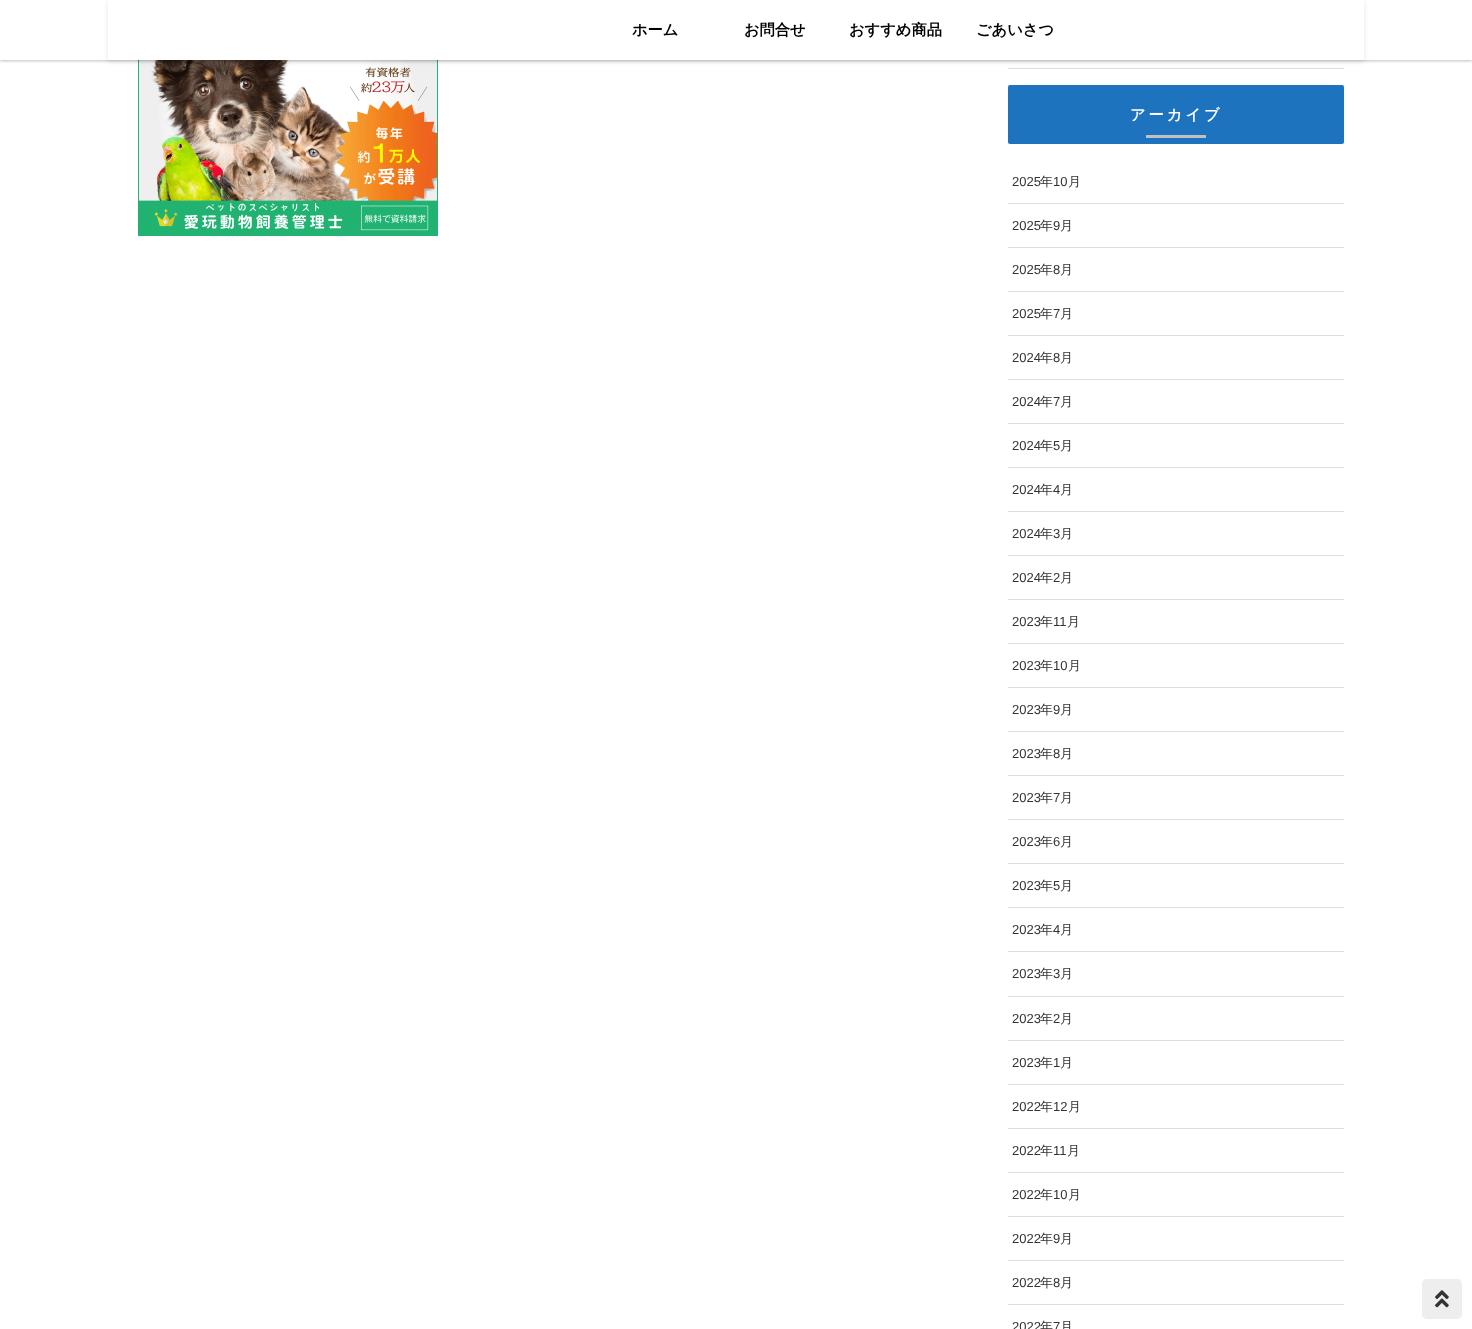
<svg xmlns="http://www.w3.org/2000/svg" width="1472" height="1329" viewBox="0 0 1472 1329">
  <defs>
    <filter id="blur1" x="-50%" y="-200%" width="200%" height="500%"><feGaussianBlur stdDeviation="1.5"/></filter>
    <clipPath id="clip1"><path d="M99 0H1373V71H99ZM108 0H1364V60H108Z" clip-rule="evenodd"/></clipPath>
    <filter id="blur2" x="-50%" y="-200%" width="200%" height="500%"><feGaussianBlur stdDeviation="2.5"/></filter>
  </defs>
  <rect width="100%" height="100%" fill="#ffffff"/>
  <image x="138" y="60" width="300" height="176" href="img1.png"/>
  <rect x="0" y="1" width="1472" height="60" fill="#000000" fill-opacity="0.25" filter="url(#blur1)"/>
  <rect x="0" y="0" width="1472" height="60" fill="#ffffff"/>
  <rect x="1008" y="68" width="336" height="1" fill="#dddddd"/>
  <g clip-path="url(#clip1)">
    <rect x="108" y="2" width="1256" height="60" fill="#000000" fill-opacity="0.1" filter="url(#blur2)"/>
  </g>
  <text x="632" y="35" font-family="WenQuanYi Zen Hei" font-size="15.25" font-weight="bold" fill="#000000">ホーム</text>
  <text x="744" y="35" font-family="WenQuanYi Zen Hei" font-size="15.25" font-weight="bold" fill="#000000">お問合せ</text>
  <text x="849" y="35" font-family="WenQuanYi Zen Hei" font-size="15.25" font-weight="bold" fill="#000000">おすすめ商品</text>
  <text x="976" y="35" font-family="WenQuanYi Zen Hei" font-size="15.25" font-weight="bold" fill="#000000">ごあいさつ</text>
  <rect x="1008" y="85" width="336" height="59" rx="2" fill="#1e73be"/>
  <text x="1130" y="120" font-family="WenQuanYi Zen Hei" font-size="15.25" font-weight="bold" letter-spacing="3" fill="#ffffff">アーカイブ</text>
  <rect x="1146" y="135" width="60" height="3" fill="#c0c0c0"/>
  <rect x="1008" y="203" width="336" height="1" fill="#dddddd"/>
  <text x="1012" y="186" font-family="Liberation Sans" font-size="13" fill="#333333">2025</text>
  <text x="1040" y="186" font-family="WenQuanYi Zen Hei" font-size="13" font-weight="500" fill="#333333">年</text>
  <text x="1053" y="186" font-family="Liberation Sans" font-size="13" fill="#333333">10</text>
  <text x="1068" y="186" font-family="WenQuanYi Zen Hei" font-size="13" font-weight="500" fill="#333333">月</text>
  <rect x="1008" y="247" width="336" height="1" fill="#dddddd"/>
  <text x="1012" y="230" font-family="Liberation Sans" font-size="13" fill="#333333">2025</text>
  <text x="1040" y="230" font-family="WenQuanYi Zen Hei" font-size="13" font-weight="500" fill="#333333">年</text>
  <text x="1053" y="230" font-family="Liberation Sans" font-size="13" fill="#333333">9</text>
  <text x="1060" y="230" font-family="WenQuanYi Zen Hei" font-size="13" font-weight="500" fill="#333333">月</text>
  <rect x="1008" y="291" width="336" height="1" fill="#dddddd"/>
  <text x="1012" y="274" font-family="Liberation Sans" font-size="13" fill="#333333">2025</text>
  <text x="1040" y="274" font-family="WenQuanYi Zen Hei" font-size="13" font-weight="500" fill="#333333">年</text>
  <text x="1053" y="274" font-family="Liberation Sans" font-size="13" fill="#333333">8</text>
  <text x="1060" y="274" font-family="WenQuanYi Zen Hei" font-size="13" font-weight="500" fill="#333333">月</text>
  <rect x="1008" y="335" width="336" height="1" fill="#dddddd"/>
  <text x="1012" y="318" font-family="Liberation Sans" font-size="13" fill="#333333">2025</text>
  <text x="1040" y="318" font-family="WenQuanYi Zen Hei" font-size="13" font-weight="500" fill="#333333">年</text>
  <text x="1053" y="318" font-family="Liberation Sans" font-size="13" fill="#333333">7</text>
  <text x="1060" y="318" font-family="WenQuanYi Zen Hei" font-size="13" font-weight="500" fill="#333333">月</text>
  <rect x="1008" y="379" width="336" height="1" fill="#dddddd"/>
  <text x="1012" y="362" font-family="Liberation Sans" font-size="13" fill="#333333">2024</text>
  <text x="1040" y="362" font-family="WenQuanYi Zen Hei" font-size="13" font-weight="500" fill="#333333">年</text>
  <text x="1053" y="362" font-family="Liberation Sans" font-size="13" fill="#333333">8</text>
  <text x="1060" y="362" font-family="WenQuanYi Zen Hei" font-size="13" font-weight="500" fill="#333333">月</text>
  <rect x="1008" y="423" width="336" height="1" fill="#dddddd"/>
  <text x="1012" y="406" font-family="Liberation Sans" font-size="13" fill="#333333">2024</text>
  <text x="1040" y="406" font-family="WenQuanYi Zen Hei" font-size="13" font-weight="500" fill="#333333">年</text>
  <text x="1053" y="406" font-family="Liberation Sans" font-size="13" fill="#333333">7</text>
  <text x="1060" y="406" font-family="WenQuanYi Zen Hei" font-size="13" font-weight="500" fill="#333333">月</text>
  <rect x="1008" y="467" width="336" height="1" fill="#dddddd"/>
  <text x="1012" y="450" font-family="Liberation Sans" font-size="13" fill="#333333">2024</text>
  <text x="1040" y="450" font-family="WenQuanYi Zen Hei" font-size="13" font-weight="500" fill="#333333">年</text>
  <text x="1053" y="450" font-family="Liberation Sans" font-size="13" fill="#333333">5</text>
  <text x="1060" y="450" font-family="WenQuanYi Zen Hei" font-size="13" font-weight="500" fill="#333333">月</text>
  <rect x="1008" y="511" width="336" height="1" fill="#dddddd"/>
  <text x="1012" y="494" font-family="Liberation Sans" font-size="13" fill="#333333">2024</text>
  <text x="1040" y="494" font-family="WenQuanYi Zen Hei" font-size="13" font-weight="500" fill="#333333">年</text>
  <text x="1053" y="494" font-family="Liberation Sans" font-size="13" fill="#333333">4</text>
  <text x="1060" y="494" font-family="WenQuanYi Zen Hei" font-size="13" font-weight="500" fill="#333333">月</text>
  <rect x="1008" y="555" width="336" height="1" fill="#dddddd"/>
  <text x="1012" y="538" font-family="Liberation Sans" font-size="13" fill="#333333">2024</text>
  <text x="1040" y="538" font-family="WenQuanYi Zen Hei" font-size="13" font-weight="500" fill="#333333">年</text>
  <text x="1053" y="538" font-family="Liberation Sans" font-size="13" fill="#333333">3</text>
  <text x="1060" y="538" font-family="WenQuanYi Zen Hei" font-size="13" font-weight="500" fill="#333333">月</text>
  <rect x="1008" y="599" width="336" height="1" fill="#dddddd"/>
  <text x="1012" y="582" font-family="Liberation Sans" font-size="13" fill="#333333">2024</text>
  <text x="1040" y="582" font-family="WenQuanYi Zen Hei" font-size="13" font-weight="500" fill="#333333">年</text>
  <text x="1053" y="582" font-family="Liberation Sans" font-size="13" fill="#333333">2</text>
  <text x="1060" y="582" font-family="WenQuanYi Zen Hei" font-size="13" font-weight="500" fill="#333333">月</text>
  <rect x="1008" y="643" width="336" height="1" fill="#dddddd"/>
  <text x="1012" y="626" font-family="Liberation Sans" font-size="13" fill="#333333">2023</text>
  <text x="1040" y="626" font-family="WenQuanYi Zen Hei" font-size="13" font-weight="500" fill="#333333">年</text>
  <text x="1053" y="626" font-family="Liberation Sans" font-size="13" fill="#333333">11</text>
  <text x="1067" y="626" font-family="WenQuanYi Zen Hei" font-size="13" font-weight="500" fill="#333333">月</text>
  <rect x="1008" y="687" width="336" height="1" fill="#dddddd"/>
  <text x="1012" y="670" font-family="Liberation Sans" font-size="13" fill="#333333">2023</text>
  <text x="1040" y="670" font-family="WenQuanYi Zen Hei" font-size="13" font-weight="500" fill="#333333">年</text>
  <text x="1053" y="670" font-family="Liberation Sans" font-size="13" fill="#333333">10</text>
  <text x="1068" y="670" font-family="WenQuanYi Zen Hei" font-size="13" font-weight="500" fill="#333333">月</text>
  <rect x="1008" y="731" width="336" height="1" fill="#dddddd"/>
  <text x="1012" y="714" font-family="Liberation Sans" font-size="13" fill="#333333">2023</text>
  <text x="1040" y="714" font-family="WenQuanYi Zen Hei" font-size="13" font-weight="500" fill="#333333">年</text>
  <text x="1053" y="714" font-family="Liberation Sans" font-size="13" fill="#333333">9</text>
  <text x="1060" y="714" font-family="WenQuanYi Zen Hei" font-size="13" font-weight="500" fill="#333333">月</text>
  <rect x="1008" y="775" width="336" height="1" fill="#dddddd"/>
  <text x="1012" y="758" font-family="Liberation Sans" font-size="13" fill="#333333">2023</text>
  <text x="1040" y="758" font-family="WenQuanYi Zen Hei" font-size="13" font-weight="500" fill="#333333">年</text>
  <text x="1053" y="758" font-family="Liberation Sans" font-size="13" fill="#333333">8</text>
  <text x="1060" y="758" font-family="WenQuanYi Zen Hei" font-size="13" font-weight="500" fill="#333333">月</text>
  <rect x="1008" y="819" width="336" height="1" fill="#dddddd"/>
  <text x="1012" y="802" font-family="Liberation Sans" font-size="13" fill="#333333">2023</text>
  <text x="1040" y="802" font-family="WenQuanYi Zen Hei" font-size="13" font-weight="500" fill="#333333">年</text>
  <text x="1053" y="802" font-family="Liberation Sans" font-size="13" fill="#333333">7</text>
  <text x="1060" y="802" font-family="WenQuanYi Zen Hei" font-size="13" font-weight="500" fill="#333333">月</text>
  <rect x="1008" y="863" width="336" height="1" fill="#dddddd"/>
  <text x="1012" y="846" font-family="Liberation Sans" font-size="13" fill="#333333">2023</text>
  <text x="1040" y="846" font-family="WenQuanYi Zen Hei" font-size="13" font-weight="500" fill="#333333">年</text>
  <text x="1053" y="846" font-family="Liberation Sans" font-size="13" fill="#333333">6</text>
  <text x="1060" y="846" font-family="WenQuanYi Zen Hei" font-size="13" font-weight="500" fill="#333333">月</text>
  <rect x="1008" y="907" width="336" height="1" fill="#dddddd"/>
  <text x="1012" y="890" font-family="Liberation Sans" font-size="13" fill="#333333">2023</text>
  <text x="1040" y="890" font-family="WenQuanYi Zen Hei" font-size="13" font-weight="500" fill="#333333">年</text>
  <text x="1053" y="890" font-family="Liberation Sans" font-size="13" fill="#333333">5</text>
  <text x="1060" y="890" font-family="WenQuanYi Zen Hei" font-size="13" font-weight="500" fill="#333333">月</text>
  <rect x="1008" y="951" width="336" height="1" fill="#dddddd"/>
  <text x="1012" y="934" font-family="Liberation Sans" font-size="13" fill="#333333">2023</text>
  <text x="1040" y="934" font-family="WenQuanYi Zen Hei" font-size="13" font-weight="500" fill="#333333">年</text>
  <text x="1053" y="934" font-family="Liberation Sans" font-size="13" fill="#333333">4</text>
  <text x="1060" y="934" font-family="WenQuanYi Zen Hei" font-size="13" font-weight="500" fill="#333333">月</text>
  <rect x="1008" y="996" width="336" height="1" fill="#dddddd"/>
  <text x="1012" y="978" font-family="Liberation Sans" font-size="13" fill="#333333">2023</text>
  <text x="1040" y="978" font-family="WenQuanYi Zen Hei" font-size="13" font-weight="500" fill="#333333">年</text>
  <text x="1053" y="978" font-family="Liberation Sans" font-size="13" fill="#333333">3</text>
  <text x="1060" y="978" font-family="WenQuanYi Zen Hei" font-size="13" font-weight="500" fill="#333333">月</text>
  <rect x="1008" y="1040" width="336" height="1" fill="#dddddd"/>
  <text x="1012" y="1023" font-family="Liberation Sans" font-size="13" fill="#333333">2023</text>
  <text x="1040" y="1023" font-family="WenQuanYi Zen Hei" font-size="13" font-weight="500" fill="#333333">年</text>
  <text x="1053" y="1023" font-family="Liberation Sans" font-size="13" fill="#333333">2</text>
  <text x="1060" y="1023" font-family="WenQuanYi Zen Hei" font-size="13" font-weight="500" fill="#333333">月</text>
  <rect x="1008" y="1084" width="336" height="1" fill="#dddddd"/>
  <text x="1012" y="1067" font-family="Liberation Sans" font-size="13" fill="#333333">2023</text>
  <text x="1040" y="1067" font-family="WenQuanYi Zen Hei" font-size="13" font-weight="500" fill="#333333">年</text>
  <text x="1053" y="1067" font-family="Liberation Sans" font-size="13" fill="#333333">1</text>
  <text x="1060" y="1067" font-family="WenQuanYi Zen Hei" font-size="13" font-weight="500" fill="#333333">月</text>
  <rect x="1008" y="1128" width="336" height="1" fill="#dddddd"/>
  <text x="1012" y="1111" font-family="Liberation Sans" font-size="13" fill="#333333">2022</text>
  <text x="1040" y="1111" font-family="WenQuanYi Zen Hei" font-size="13" font-weight="500" fill="#333333">年</text>
  <text x="1053" y="1111" font-family="Liberation Sans" font-size="13" fill="#333333">12</text>
  <text x="1068" y="1111" font-family="WenQuanYi Zen Hei" font-size="13" font-weight="500" fill="#333333">月</text>
  <rect x="1008" y="1172" width="336" height="1" fill="#dddddd"/>
  <text x="1012" y="1155" font-family="Liberation Sans" font-size="13" fill="#333333">2022</text>
  <text x="1040" y="1155" font-family="WenQuanYi Zen Hei" font-size="13" font-weight="500" fill="#333333">年</text>
  <text x="1053" y="1155" font-family="Liberation Sans" font-size="13" fill="#333333">11</text>
  <text x="1067" y="1155" font-family="WenQuanYi Zen Hei" font-size="13" font-weight="500" fill="#333333">月</text>
  <rect x="1008" y="1216" width="336" height="1" fill="#dddddd"/>
  <text x="1012" y="1199" font-family="Liberation Sans" font-size="13" fill="#333333">2022</text>
  <text x="1040" y="1199" font-family="WenQuanYi Zen Hei" font-size="13" font-weight="500" fill="#333333">年</text>
  <text x="1053" y="1199" font-family="Liberation Sans" font-size="13" fill="#333333">10</text>
  <text x="1068" y="1199" font-family="WenQuanYi Zen Hei" font-size="13" font-weight="500" fill="#333333">月</text>
  <rect x="1008" y="1260" width="336" height="1" fill="#dddddd"/>
  <text x="1012" y="1243" font-family="Liberation Sans" font-size="13" fill="#333333">2022</text>
  <text x="1040" y="1243" font-family="WenQuanYi Zen Hei" font-size="13" font-weight="500" fill="#333333">年</text>
  <text x="1053" y="1243" font-family="Liberation Sans" font-size="13" fill="#333333">9</text>
  <text x="1060" y="1243" font-family="WenQuanYi Zen Hei" font-size="13" font-weight="500" fill="#333333">月</text>
  <rect x="1008" y="1304" width="336" height="1" fill="#dddddd"/>
  <text x="1012" y="1287" font-family="Liberation Sans" font-size="13" fill="#333333">2022</text>
  <text x="1040" y="1287" font-family="WenQuanYi Zen Hei" font-size="13" font-weight="500" fill="#333333">年</text>
  <text x="1053" y="1287" font-family="Liberation Sans" font-size="13" fill="#333333">8</text>
  <text x="1060" y="1287" font-family="WenQuanYi Zen Hei" font-size="13" font-weight="500" fill="#333333">月</text>
  <text x="1012" y="1331" font-family="Liberation Sans" font-size="13" fill="#333333">2022</text>
  <text x="1040" y="1331" font-family="WenQuanYi Zen Hei" font-size="13" font-weight="500" fill="#333333">年</text>
  <text x="1053" y="1331" font-family="Liberation Sans" font-size="13" fill="#333333">7</text>
  <text x="1060" y="1331" font-family="WenQuanYi Zen Hei" font-size="13" font-weight="500" fill="#333333">月</text>
  <rect x="1422" y="1279" width="40" height="40" rx="5" fill="#eeeeee"/>
  <image x="1435" y="1290" width="14" height="18" href="img2.png"/>
</svg>
